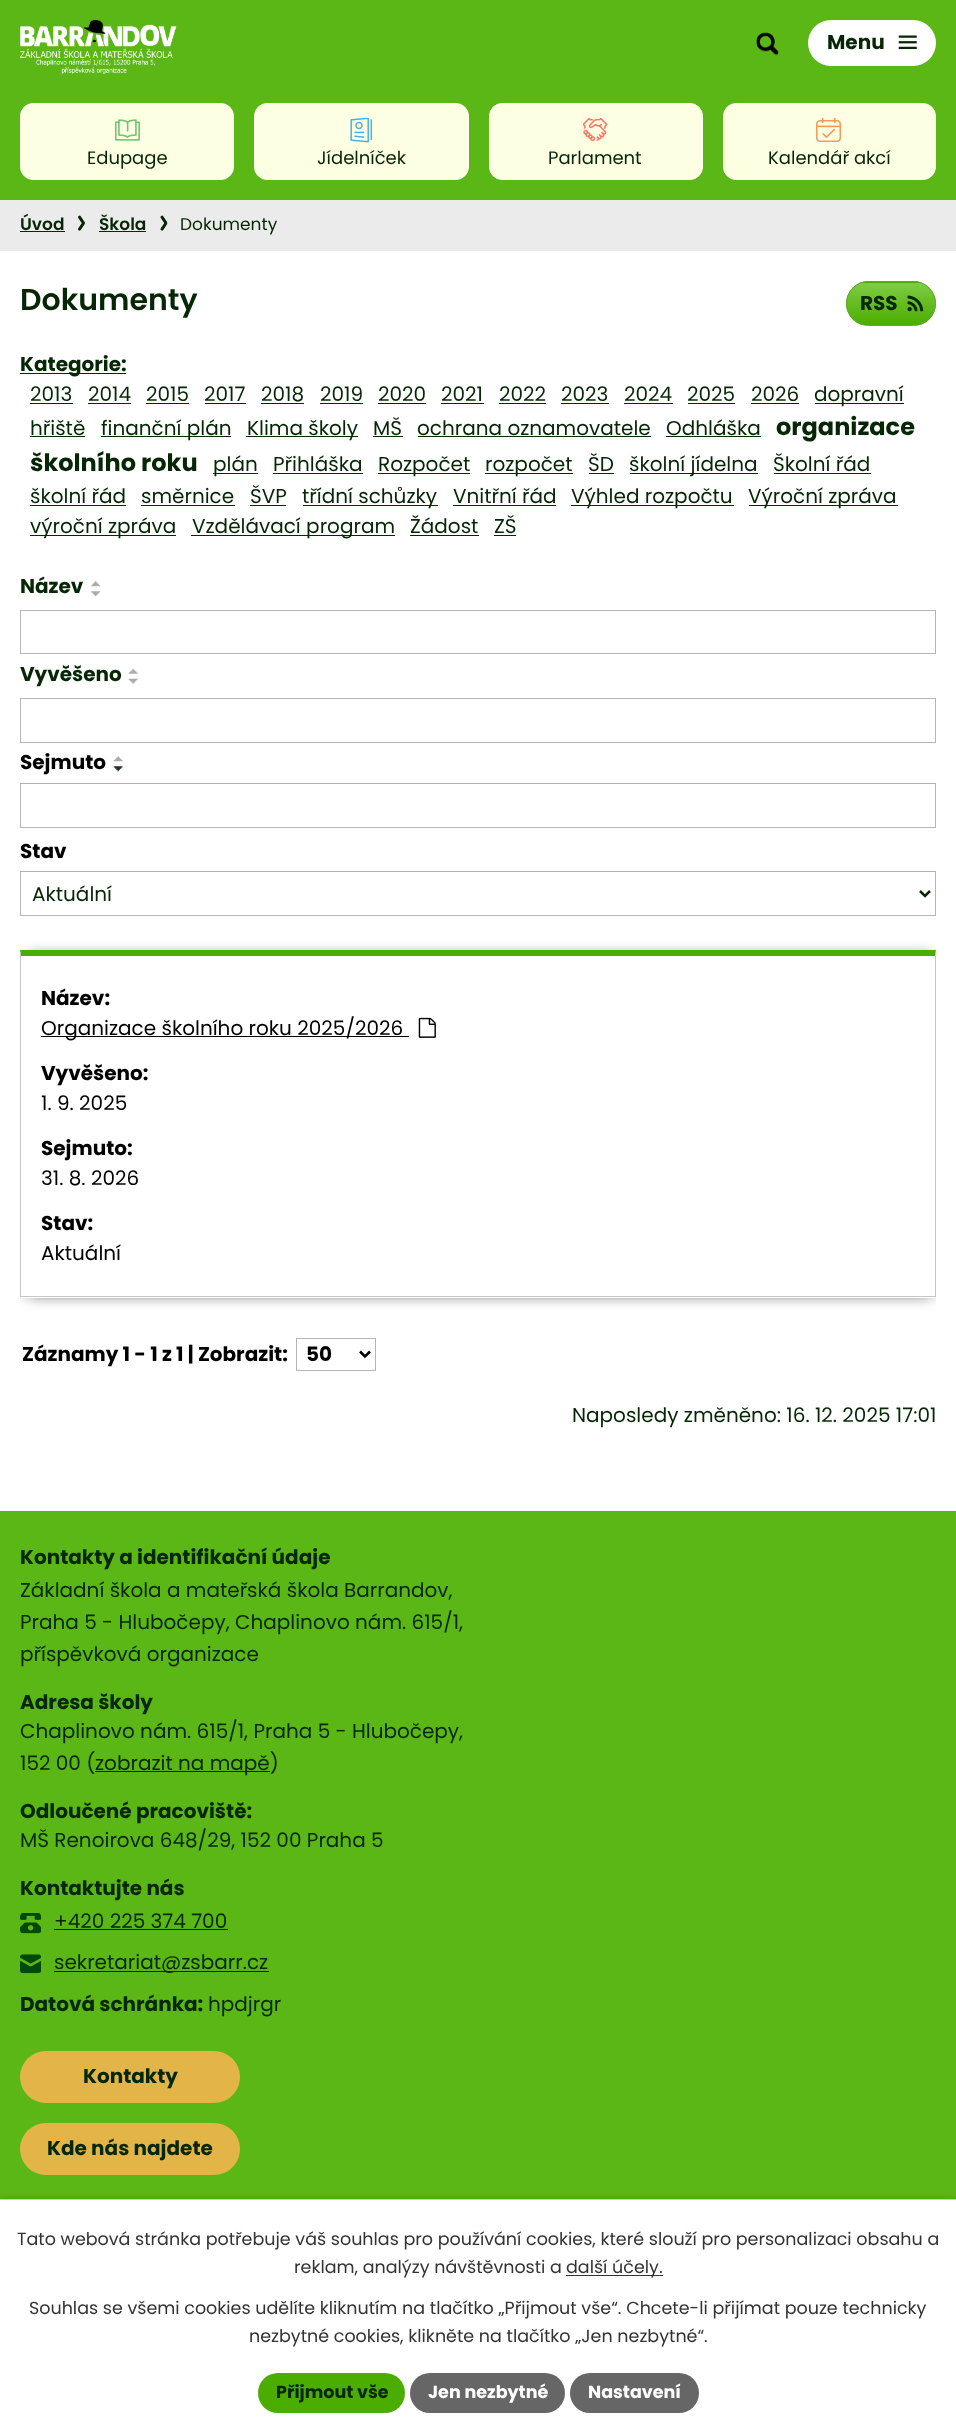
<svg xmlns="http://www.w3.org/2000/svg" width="956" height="2435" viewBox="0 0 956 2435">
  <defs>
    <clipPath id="clip1"><rect x="846" y="281" width="90" height="45" rx="22.5"/></clipPath>
    <linearGradient id="g1" gradientUnits="userSpaceOnUse" x1="891" y1="240" x2="891" y2="283"><stop offset="0" stop-color="#7fcc44"/><stop offset="1" stop-color="#4bad00"/></linearGradient>
    <linearGradient id="g2" gradientUnits="userSpaceOnUse" x1="891" y1="283" x2="891" y2="325"><stop offset="0" stop-color="#7fcc44"/><stop offset="1" stop-color="#4bad00"/></linearGradient>
    <clipPath id="clip2"><rect x="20" y="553" width="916" height="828"/></clipPath>
    <clipPath id="clip3"><path d="M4 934H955V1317H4ZM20 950H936V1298H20Z" clip-rule="evenodd"/></clipPath>
    <filter id="blur1" x="-50%" y="-200%" width="200%" height="500%"><feGaussianBlur stdDeviation="7.5"/></filter>
    <filter id="blur2" x="-50%" y="-200%" width="200%" height="500%"><feGaussianBlur stdDeviation="3"/></filter>
  </defs>
  <rect width="100%" height="100%" fill="#ffffff"/>
  <rect x="0" y="0" width="956" height="200" fill="#5bb715"/>
  <rect x="808" y="20" width="128" height="46" rx="23" fill="#ffffff"/>
  <text x="827" y="49" font-family="Poppins" font-size="20" font-weight="bold" fill="#062705">Menu</text>
  <image x="898" y="35" width="19" height="14" href="img1.png"/>
  <image x="20" y="20" width="157" height="54" href="img2.png"/>
  <image x="756" y="32" width="23" height="24" href="img3.png"/>
  <rect x="20.5" y="103.5" width="213" height="76" rx="12.5" fill="#fcffe2" stroke="#fefff2"/>
  <image x="115" y="119" width="25" height="22" href="img4.png"/>
  <text x="87" y="164" font-family="Poppins" font-size="18" fill="#062705">Edupage</text>
  <rect x="254.5" y="103.5" width="214" height="76" rx="12.5" fill="#fcffe2" stroke="#fefff2"/>
  <image x="350" y="118" width="23" height="25" href="img5.png"/>
  <text x="317" y="164" font-family="Poppins" font-size="18" fill="#062705">Jídelníček</text>
  <rect x="489.5" y="103.5" width="213" height="76" rx="12.5" fill="#fcffe2" stroke="#fefff2"/>
  <image x="583" y="118" width="25" height="24" href="img6.png"/>
  <text x="548" y="164" font-family="Poppins" font-size="18" fill="#062705">Parlament</text>
  <rect x="723.5" y="103.5" width="212" height="76" rx="12.5" fill="#fcffe2" stroke="#fefff2"/>
  <image x="816" y="118" width="25" height="24" href="img7.png"/>
  <text x="768" y="164" font-family="Poppins" font-size="18" fill="#062705">Kalendář akcí</text>
  <rect x="0" y="200" width="956" height="51" fill="#ebebeb"/>
  <text x="20" y="230" font-family="Poppins" font-size="17" font-weight="600" fill="#062705">Úvod</text>
  <rect x="20" y="231" width="45" height="1" fill="#062705"/>
  <image x="78" y="215" width="7" height="16" href="img8.png"/>
  <text x="99" y="230" font-family="Poppins" font-size="17" font-weight="600" fill="#062705">Škola</text>
  <rect x="99" y="231" width="47" height="1" fill="#062705"/>
  <image x="160" y="215" width="8" height="16" href="img9.png"/>
  <text x="180" y="230" font-family="Poppins" font-size="17" fill="#062705">Dokumenty</text>
  <text x="20" y="310" font-family="Poppins" font-size="30" font-weight="600" fill="#062705">Dokumenty</text>
  <g clip-path="url(#clip1)">
    <rect x="859" y="281" width="64" height="2" fill="url(#g1)"/>
    <rect x="846" y="283" width="90" height="42" fill="url(#g2)"/>
  </g>
  <rect x="846.5" y="281.5" width="89" height="44" rx="22" fill="none" stroke="#60a829"/>
  <text x="860" y="310" font-family="Poppins" font-size="20" font-weight="bold" fill="#062705">RSS</text>
  <image x="907" y="295" width="17" height="17" href="img10.png"/>
  <rect x="20" y="373" width="106" height="1" fill="#062705"/>
  <text x="20" y="371" font-family="Poppins" font-size="20" font-weight="bold" fill="#062705">Kategorie:</text>
  <text x="30" y="401" font-family="Poppins" font-size="20" fill="#062705">2013</text>
  <rect x="30" y="403" width="43" height="1" fill="#062705"/>
  <text x="88" y="401" font-family="Poppins" font-size="20" fill="#062705">2014</text>
  <rect x="88" y="403" width="43" height="1" fill="#062705"/>
  <text x="146" y="401" font-family="Poppins" font-size="20" fill="#062705">2015</text>
  <rect x="146" y="403" width="43" height="1" fill="#062705"/>
  <text x="204" y="401" font-family="Poppins" font-size="20" fill="#062705">2017</text>
  <rect x="205" y="403" width="41" height="1" fill="#062705"/>
  <text x="261" y="401" font-family="Poppins" font-size="20" fill="#062705">2018</text>
  <rect x="261" y="403" width="43" height="1" fill="#062705"/>
  <text x="320" y="401" font-family="Poppins" font-size="20" fill="#062705">2019</text>
  <rect x="320" y="403" width="43" height="1" fill="#062705"/>
  <text x="378" y="401" font-family="Poppins" font-size="20" fill="#062705">2020</text>
  <rect x="378" y="403" width="48" height="1" fill="#062705"/>
  <text x="441" y="401" font-family="Poppins" font-size="20" fill="#062705">2021</text>
  <rect x="441" y="403" width="43" height="1" fill="#062705"/>
  <text x="499" y="401" font-family="Poppins" font-size="20" fill="#062705">2022</text>
  <rect x="499" y="403" width="47" height="1" fill="#062705"/>
  <text x="561" y="401" font-family="Poppins" font-size="20" fill="#062705">2023</text>
  <rect x="561" y="403" width="48" height="1" fill="#062705"/>
  <text x="624" y="401" font-family="Poppins" font-size="20" fill="#062705">2024</text>
  <rect x="624" y="403" width="49" height="1" fill="#062705"/>
  <text x="687" y="401" font-family="Poppins" font-size="20" fill="#062705">2025</text>
  <rect x="688" y="403" width="47" height="1" fill="#062705"/>
  <text x="751" y="401" font-family="Poppins" font-size="20" fill="#062705">2026</text>
  <rect x="751" y="403" width="48" height="1" fill="#062705"/>
  <rect x="815" y="403" width="89" height="1" fill="#062705"/>
  <text x="814" y="401" font-family="Poppins" font-size="20" fill="#062705">dopravní</text>
  <text x="30" y="435" font-family="Poppins" font-size="20" fill="#062705">hřiště</text>
  <rect x="30" y="436" width="55" height="1" fill="#062705"/>
  <rect x="101" y="436" width="130" height="1" fill="#062705"/>
  <text x="101" y="435" font-family="Poppins" font-size="20" fill="#062705">finanční plán</text>
  <rect x="246" y="436" width="112" height="1" fill="#062705"/>
  <text x="247" y="435" font-family="Poppins" font-size="20" fill="#062705">Klima školy</text>
  <text x="373" y="435" font-family="Poppins" font-size="20" fill="#062705">MŠ</text>
  <rect x="373" y="436" width="30" height="1" fill="#062705"/>
  <text x="417" y="435" font-family="Poppins" font-size="20" fill="#062705">ochrana oznamovatele</text>
  <rect x="418" y="436" width="233" height="1" fill="#062705"/>
  <text x="666" y="435" font-family="Poppins" font-size="20" fill="#062705">Odhláška</text>
  <rect x="666" y="436" width="95" height="1" fill="#062705"/>
  <text x="776" y="435" font-family="Poppins" font-size="24" font-weight="bold" fill="#062705">organizace</text>
  <text x="30" y="471" font-family="Poppins" font-size="24" font-weight="bold" fill="#062705">školního roku</text>
  <rect x="213" y="473" width="45" height="1" fill="#062705"/>
  <text x="213" y="471" font-family="Poppins" font-size="20" fill="#062705">plán</text>
  <text x="273" y="471" font-family="Poppins" font-size="20" fill="#062705">Přihláška</text>
  <rect x="273" y="473" width="90" height="1" fill="#062705"/>
  <rect x="378" y="473" width="92" height="1" fill="#062705"/>
  <text x="378" y="471" font-family="Poppins" font-size="20" fill="#062705">Rozpočet</text>
  <rect x="485" y="473" width="88" height="1" fill="#062705"/>
  <text x="485" y="471" font-family="Poppins" font-size="20" fill="#062705">rozpočet</text>
  <text x="588" y="471" font-family="Poppins" font-size="20" fill="#062705">ŠD</text>
  <rect x="589" y="473" width="25" height="1" fill="#062705"/>
  <rect x="630" y="473" width="128" height="1" fill="#062705"/>
  <text x="629" y="471" font-family="Poppins" font-size="20" fill="#062705">školní jídelna</text>
  <text x="773" y="471" font-family="Poppins" font-size="20" fill="#062705">Školní řád</text>
  <rect x="774" y="473" width="97" height="1" fill="#062705"/>
  <text x="30" y="503" font-family="Poppins" font-size="20" fill="#062705">školní řád</text>
  <rect x="30" y="505" width="96" height="1" fill="#062705"/>
  <text x="141" y="503" font-family="Poppins" font-size="20" fill="#062705">směrnice</text>
  <rect x="141" y="505" width="94" height="1" fill="#062705"/>
  <text x="250" y="503" font-family="Poppins" font-size="20" fill="#062705">ŠVP</text>
  <rect x="250" y="505" width="36" height="1" fill="#062705"/>
  <rect x="303" y="505" width="135" height="1" fill="#062705"/>
  <text x="302" y="503" font-family="Poppins" font-size="20" fill="#062705">třídní schůzky</text>
  <text x="453" y="503" font-family="Poppins" font-size="20" fill="#062705">Vnitřní řád</text>
  <rect x="453" y="505" width="103" height="1" fill="#062705"/>
  <rect x="571" y="505" width="163" height="1" fill="#062705"/>
  <text x="571" y="503" font-family="Poppins" font-size="20" fill="#062705">Výhled rozpočtu</text>
  <rect x="749" y="505" width="149" height="1" fill="#062705"/>
  <text x="748" y="503" font-family="Poppins" font-size="20" fill="#062705">Výroční zpráva</text>
  <rect x="30" y="535" width="146" height="1" fill="#062705"/>
  <text x="30" y="533" font-family="Poppins" font-size="20" fill="#062705">výroční zpráva</text>
  <rect x="191" y="535" width="204" height="1" fill="#062705"/>
  <text x="192" y="533" font-family="Poppins" font-size="20" fill="#062705">Vzdělávací program</text>
  <text x="410" y="533" font-family="Poppins" font-size="20" fill="#062705">Žádost</text>
  <rect x="410" y="535" width="69" height="1" fill="#062705"/>
  <text x="494" y="533" font-family="Poppins" font-size="20" fill="#062705">ZŠ</text>
  <rect x="494" y="535" width="22" height="1" fill="#062705"/>
  <text x="20" y="593" font-family="Poppins" font-size="20" font-weight="bold" fill="#062705">Název</text>
  <image x="91" y="581" width="10" height="6" href="img11.png"/>
  <image x="91" y="591" width="10" height="6" href="img12.png"/>
  <text x="20" y="681" font-family="Poppins" font-size="20" font-weight="bold" fill="#062705">Vyvěšeno</text>
  <image x="128" y="668" width="10" height="6" href="img13.png"/>
  <image x="128" y="678" width="10" height="6" href="img14.png"/>
  <text x="20" y="769" font-family="Poppins" font-size="20" font-weight="bold" fill="#000000">Sejmuto</text>
  <image x="113" y="756" width="10" height="6" href="img15.png"/>
  <image x="113" y="766" width="10" height="6" href="img16.png"/>
  <text x="20" y="858" font-family="Poppins" font-size="20" font-weight="bold" fill="#000000">Stav</text>
  <rect x="20.5" y="610.5" width="915" height="43" fill="none" stroke="#b5b5b5"/>
  <rect x="20.5" y="698.5" width="915" height="44" fill="none" stroke="#b5b5b5"/>
  <rect x="20.5" y="783.5" width="915" height="44" fill="none" stroke="#b5b5b5"/>
  <rect x="20.5" y="871.5" width="915" height="44" fill="none" stroke="#b5b5b5"/>
  <path d="M920 891L925 896L930 891" fill="none" stroke="#062705" stroke-width="2.5"/>
  <text x="32" y="901" font-family="Poppins" font-size="20" fill="#062705">Aktuální</text>
  <g clip-path="url(#clip2)">
    <g clip-path="url(#clip3)">
      <rect x="28" y="958" width="903" height="335" fill="#062705" filter="url(#blur1)"/>
    </g>
  </g>
  <path d="M20 950H936L935 956H21Z" fill="#4bad00"/>
  <path d="M936 950V1298L935 1296V956Z" fill="#c5c5c5"/>
  <rect x="20" y="1296" width="916" height="1" fill="#c5c5c5"/>
  <path d="M20 1298V950L21 956V1296Z" fill="#c5c5c5"/>
  <text x="41" y="1005" font-family="Poppins" font-size="20" font-weight="bold" fill="#000000">Název:</text>
  <rect x="41" y="1036" width="368" height="1" fill="#000000"/>
  <text x="41" y="1035" font-family="Poppins" font-size="20" fill="#000000">Organizace školního roku 2025/2026</text>
  <image x="418" y="1017" width="18" height="21" href="img17.png"/>
  <text x="41" y="1080" font-family="Poppins" font-size="20" font-weight="bold" fill="#000000">Vyvěšeno:</text>
  <text x="41" y="1110" font-family="Poppins" font-size="20" fill="#000000">1. 9. 2025</text>
  <text x="41" y="1155" font-family="Poppins" font-size="20" font-weight="bold" fill="#000000">Sejmuto:</text>
  <text x="41" y="1185" font-family="Poppins" font-size="20" fill="#000000">31. 8. 2026</text>
  <text x="41" y="1230" font-family="Poppins" font-size="20" font-weight="bold" fill="#000000">Stav:</text>
  <text x="41" y="1260" font-family="Poppins" font-size="20" fill="#000000">Aktuální</text>
  <text x="22" y="1361" font-family="Poppins" font-size="20" font-weight="bold" fill="#000000">Záznamy 1 - 1 z 1 | Zobrazit:</text>
  <rect x="296.5" y="1338.5" width="79" height="32" fill="none" stroke="#b5b5b5"/>
  <path d="M360 1351.5L365 1356.5L370 1351.5" fill="none" stroke="#000000" stroke-width="2.5"/>
  <text x="306" y="1361" font-family="Poppins" font-size="20" font-weight="bold" fill="#000000">50</text>
  <text x="572" y="1422" font-family="Poppins" font-size="20" fill="#062705">Naposledy změněno: 16. 12. 2025 17:01</text>
  <rect x="0" y="1511" width="956" height="688" fill="#5bb715"/>
  <text x="20" y="1564" font-family="Poppins" font-size="20" font-weight="bold" fill="#062705">Kontakty a identifikační údaje</text>
  <text x="20" y="1597" font-family="Poppins" font-size="20" fill="#062705">Základní škola a mateřská škola Barrandov,</text>
  <text x="20" y="1629" font-family="Poppins" font-size="20" fill="#062705">Praha 5 - Hlubočepy, Chaplinovo nám. 615/1,</text>
  <text x="20" y="1661" font-family="Poppins" font-size="20" fill="#062705">příspěvková organizace</text>
  <text x="20" y="1709" font-family="Poppins" font-size="20" font-weight="bold" fill="#062705">Adresa školy</text>
  <text x="20" y="1738" font-family="Poppins" font-size="20" fill="#062705">Chaplinovo nám. 615/1, Praha 5 - Hlubočepy,</text>
  <text x="20" y="1770" font-family="Poppins" font-size="20" fill="#062705">152 00 (</text>
  <rect x="95" y="1771" width="175" height="1" fill="#062705"/>
  <text x="95" y="1770" font-family="Poppins" font-size="20" fill="#062705">zobrazit na mapě)</text>
  <text x="20" y="1818" font-family="Poppins" font-size="20" font-weight="bold" fill="#062705">Odloučené pracoviště:</text>
  <text x="20" y="1847" font-family="Poppins" font-size="20" fill="#062705">MŠ Renoirova 648/29, 152 00 Praha 5</text>
  <text x="20" y="1895" font-family="Poppins" font-size="20" font-weight="bold" fill="#062705">Kontaktujte nás</text>
  <image x="20" y="1913" width="21" height="21" href="img18.png"/>
  <text x="54" y="1928" font-family="Poppins" font-size="20" fill="#062705">+420 225 374 700</text>
  <rect x="54" y="1929" width="174" height="1" fill="#062705"/>
  <image x="20" y="1954" width="21" height="20" href="img19.png"/>
  <rect x="54" y="1971" width="215" height="1" fill="#062705"/>
  <text x="54" y="1969" font-family="Poppins" font-size="20" fill="#062705">sekretariat@zsbarr.cz</text>
  <text x="20" y="2011" font-family="Poppins" font-size="20" font-weight="bold" fill="#062705">Datová schránka:</text>
  <text x="208" y="2011" font-family="Poppins" font-size="20" fill="#062705">hpdjrgr</text>
  <rect x="20" y="2051" width="220" height="52" rx="26" fill="#e3b448"/>
  <text x="83" y="2083" font-family="Poppins" font-size="20" font-weight="bold" fill="#062705">Kontakty</text>
  <rect x="20" y="2123" width="220" height="52" rx="26" fill="#e3b448"/>
  <text x="47" y="2155" font-family="Poppins" font-size="20" font-weight="bold" fill="#062705">Kde nás najdete</text>
  <rect x="0" y="2199" width="956" height="236" fill="#000000" fill-opacity="0.2" filter="url(#blur2)"/>
  <rect x="0" y="2200" width="956" height="235" fill="#ffffff"/>
  <rect x="0" y="2199" width="956" height="1" fill="#cccccc"/>
  <text x="17" y="2245" font-family="Poppins" font-size="17.5" fill="#333333">Tato webová stránka potřebuje váš souhlas pro používání cookies, které slouží pro personalizaci obsahu a</text>
  <text x="294" y="2273" font-family="Poppins" font-size="17.5" fill="#333333">reklam, analýzy návštěvnosti a</text>
  <rect x="566" y="2275" width="97" height="1" fill="#333333"/>
  <text x="566" y="2273" font-family="Poppins" font-size="17.5" fill="#333333">další účely.</text>
  <text x="29" y="2314" font-family="Poppins" font-size="17.5" fill="#333333">Souhlas se všemi cookies udělíte kliknutím na tlačítko „Přijmout vše“. Chcete-li přijímat pouze technicky</text>
  <text x="249" y="2342" font-family="Poppins" font-size="17.5" fill="#333333">nezbytné cookies, klikněte na tlačítko „Jen nezbytné“.</text>
  <rect x="258" y="2373" width="147" height="40" rx="20" fill="#4bad00"/>
  <text x="276" y="2398" font-family="Poppins" font-size="17.5" font-weight="bold" fill="#062705">Přijmout vše</text>
  <rect x="410" y="2373" width="155" height="40" rx="20" fill="#666666"/>
  <text x="428" y="2398" font-family="Poppins" font-size="17.5" font-weight="bold" fill="#ffffff">Jen nezbytné</text>
  <rect x="570" y="2373" width="129" height="40" rx="20" fill="#666666"/>
  <text x="588" y="2398" font-family="Poppins" font-size="17.5" font-weight="bold" fill="#ffffff">Nastavení</text>
</svg>
